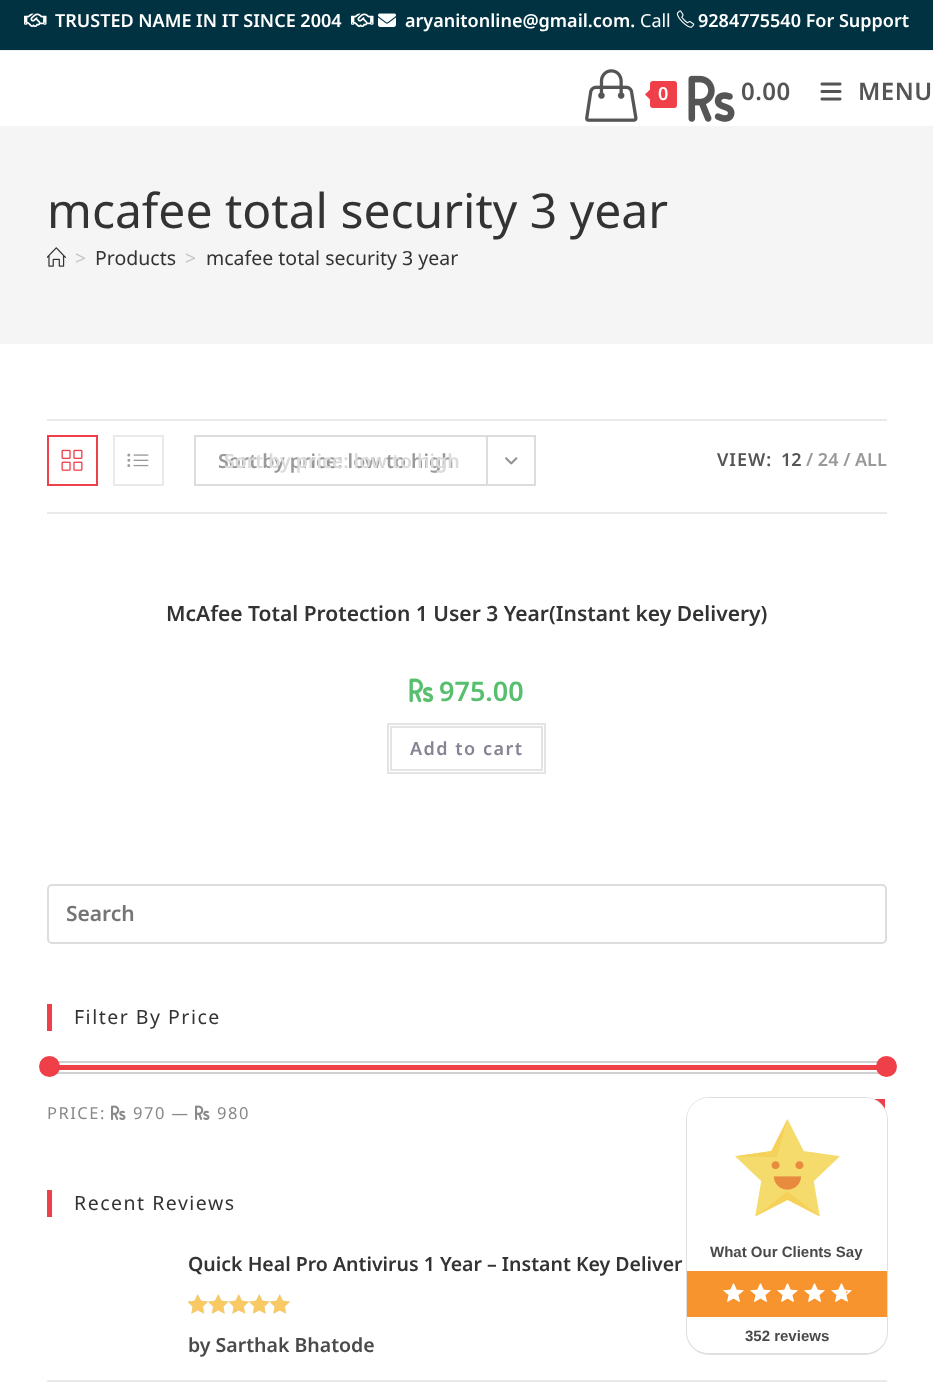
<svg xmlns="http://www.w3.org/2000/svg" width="933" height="1399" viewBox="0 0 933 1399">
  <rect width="100%" height="100%" fill="#ffffff"/>
  <rect x="0" y="0" width="933" height="50" fill="#013241"/>
  <rect x="0" y="50" width="933" height="1" fill="#f1f1f1"/>
  <image x="24" y="13" width="23" height="15" href="img1.png"/>
  <text x="55" y="27" font-family="Noto Sans" font-size="18" font-weight="600" fill="#ffffff">TRUSTED NAME IN IT SINCE 2004</text>
  <image x="351" y="13" width="23" height="15" href="img1.png"/>
  <image x="378" y="13" width="18" height="14" href="img2.png"/>
  <text x="405" y="27" font-family="Noto Sans" font-size="18" font-weight="600" fill="#ffffff">aryanitonline@gmail.com.</text>
  <text x="640" y="27" font-family="Noto Sans" font-size="18" fill="#ffffff">Call</text>
  <image x="676" y="10" width="19" height="18" href="img3.png"/>
  <text x="698" y="27" font-family="Noto Sans" font-size="18" font-weight="600" fill="#ffffff">9284775540 For Support</text>
  <image x="585" y="69" width="53" height="53" href="img4.png"/>
  <rect x="650" y="81" width="27" height="27" rx="3" fill="#ef3f49"/>
  <path d="M652.5 87V102L645 94.5Z" fill="#ef3f49"/>
  <text x="658" y="100" font-family="Noto Sans" font-size="18" font-weight="600" letter-spacing="0.5" fill="#ffffff">0</text>
  <image x="688" y="75" width="47" height="47" href="img5.png"/>
  <text x="741" y="100" font-family="Noto Sans" font-size="24" font-weight="600" letter-spacing="0.5" fill="#555555">0.00</text>
  <image x="820" y="82" width="22" height="19" href="img6.png"/>
  <text x="858" y="100" font-family="Noto Sans" font-size="24" font-weight="600" letter-spacing="0.5" fill="#555555">MENU</text>
  <rect x="0" y="126" width="933" height="218" fill="#f5f5f5"/>
  <text x="47" y="228" font-family="Noto Sans" font-size="48" fill="#333333">mcafee total security 3 year</text>
  <image x="47" y="247" width="19" height="20" href="img7.png"/>
  <text x="75" y="265" font-family="Noto Sans" font-size="19.5" fill="#c6c6c6">&gt;</text>
  <text x="95" y="265" font-family="Noto Sans" font-size="19.5" fill="#333333">Products</text>
  <text x="185" y="265" font-family="Noto Sans" font-size="19.5" fill="#c6c6c6">&gt;</text>
  <text x="206" y="265" font-family="Noto Sans" font-size="19.5" fill="#333333">mcafee total security 3 year</text>
  <rect x="47" y="419" width="840" height="2" fill="#eaeaea"/>
  <rect x="47" y="512" width="840" height="2" fill="#eaeaea"/>
  <rect x="48" y="436" width="49" height="49" fill="none" stroke="#ef3f49" stroke-width="2"/>
  <image x="61" y="449" width="22" height="22" href="img8.png"/>
  <rect x="114" y="436" width="49" height="49" fill="none" stroke="#eaeaea" stroke-width="2"/>
  <image x="127" y="453" width="22" height="14" href="img9.png"/>
  <rect x="195" y="436" width="340" height="49" fill="none" stroke="#dddddd" stroke-width="2"/>
  <text x="218" y="468" font-family="Noto Sans" font-size="19.5" font-weight="600" fill="#999999">Sort by price: low to high</text>
  <rect x="486" y="437" width="2" height="48" fill="#dddddd"/>
  <image x="505" y="457" width="13" height="8" href="img10.png"/>
  <text x="224" y="468" font-family="Noto Sans" font-size="19.5" font-weight="600" fill="#dbdbdb">Sort by price: low to high</text>
  <text x="717" y="466" font-family="Noto Sans" font-size="18" font-weight="600" letter-spacing="1" fill="#555555">VIEW:</text>
  <text x="781" y="466" font-family="Noto Sans" font-size="18" font-weight="600" fill="#555555">12</text>
  <text x="806" y="466" font-family="Noto Sans" font-size="18" font-weight="600" fill="#999999">/ 24 / ALL</text>
  <text x="166" y="621" font-family="Noto Sans" font-size="21" font-weight="600" fill="#333333">McAfee Total Protection 1 User 3 Year(Instant key Delivery)</text>
  <image x="409" y="678" width="25" height="25" href="img11.png"/>
  <text x="439" y="701" font-family="Noto Sans" font-size="27" font-weight="600" fill="#57bf6d">975.00</text>
  <rect x="388" y="724" width="157" height="49" fill="none" stroke="#e4e4e4" stroke-width="2"/>
  <rect x="391" y="727" width="151" height="43" fill="none" stroke="#e4e4e4" stroke-width="2"/>
  <text x="410" y="755" font-family="Noto Sans" font-size="18" font-weight="600" letter-spacing="1.5" fill="#848494">Add to cart</text>
  <rect x="48" y="885" width="838" height="58" rx="4" fill="none" stroke="#dddddd" stroke-width="2"/>
  <text x="66" y="921" font-family="Noto Sans" font-size="21" font-weight="600" fill="#757575">Search</text>
  <rect x="47" y="1004" width="5" height="27" fill="#ef3f49"/>
  <text x="74" y="1024" font-family="Noto Sans" font-size="19.5" letter-spacing="1.5" fill="#333333">Filter By Price</text>
  <rect x="48" y="1062" width="838" height="11" fill="none" stroke="#d0d0d0" stroke-width="2"/>
  <rect x="59" y="1065" width="826" height="5" fill="#ef3f49"/>
  <circle cx="49.5" cy="1066.5" r="10.5" fill="#ef3f49"/>
  <circle cx="886.5" cy="1066.5" r="10.5" fill="#ef3f49"/>
  <rect x="874" y="1099" width="11" height="10" fill="#ef3f49"/>
  <text x="47" y="1119" font-family="Noto Sans" font-size="16.5" letter-spacing="1.5" fill="#898989">PRICE:</text>
  <image x="111" y="1105" width="15" height="15" href="img12.png"/>
  <text x="133" y="1119" font-family="Noto Sans" font-size="16.5" letter-spacing="1.5" fill="#898989">970 —</text>
  <image x="195" y="1105" width="15" height="15" href="img12.png"/>
  <text x="217" y="1119" font-family="Noto Sans" font-size="16.5" letter-spacing="1.5" fill="#898989">980</text>
  <rect x="47" y="1190" width="5" height="27" fill="#ef3f49"/>
  <text x="74" y="1210" font-family="Noto Sans" font-size="19.5" letter-spacing="1.5" fill="#333333">Recent Reviews</text>
  <rect x="47" y="1380" width="840" height="2" fill="#eaeaea"/>
  <text x="188" y="1271" font-family="Noto Sans" font-size="19.5" font-weight="600" fill="#333333">Quick Heal Pro Antivirus 1 Year – Instant Key Deliver</text>
  <image x="188" y="1294" width="102" height="20" href="img13.png"/>
  <image x="188" y="1294" width="102" height="20" href="img14.png"/>
  <text x="188" y="1352" font-family="Noto Sans" font-size="19.5" font-weight="600" fill="#4a4a4a">by Sarthak Bhatode</text>
  <rect x="687" y="1098" width="200" height="256" rx="22" fill="none" stroke="#dfdfdf" stroke-width="2"/>
  <path d="M708 1098H866C877.5 1098 887 1107.5 887 1119V1271H687V1119C687 1107.5 696.5 1098 708 1098Z" fill="#ffffff"/>
  <rect x="687" y="1271" width="200" height="46" fill="#f8942d"/>
  <path d="M687 1317H887V1332C887 1343.5 877.5 1353 866 1353H708C696.5 1353 687 1343.5 687 1332Z" fill="#ffffff"/>
  <image x="735" y="1119" width="105" height="98" href="img15.png"/>
  <text x="710" y="1257" font-family="Liberation Sans" font-size="15" font-weight="bold" fill="#4a4a4a">What Our Clients Say</text>
  <image x="723" y="1283" width="21" height="19" href="img16.png"/>
  <image x="723" y="1283" width="21" height="19" href="img17.png"/>
  <image x="750" y="1283" width="21" height="19" href="img16.png"/>
  <image x="750" y="1283" width="21" height="19" href="img17.png"/>
  <image x="777" y="1283" width="21" height="19" href="img16.png"/>
  <image x="777" y="1283" width="21" height="19" href="img17.png"/>
  <image x="804" y="1283" width="21" height="19" href="img16.png"/>
  <image x="804" y="1283" width="21" height="19" href="img17.png"/>
  <image x="831" y="1283" width="21" height="19" href="img16.png"/>
  <image x="831" y="1283" width="15" height="19" href="img18.png"/>
  <text x="745" y="1341" font-family="Liberation Sans" font-size="15" font-weight="bold" fill="#4a4a4a">352 reviews</text>
</svg>
